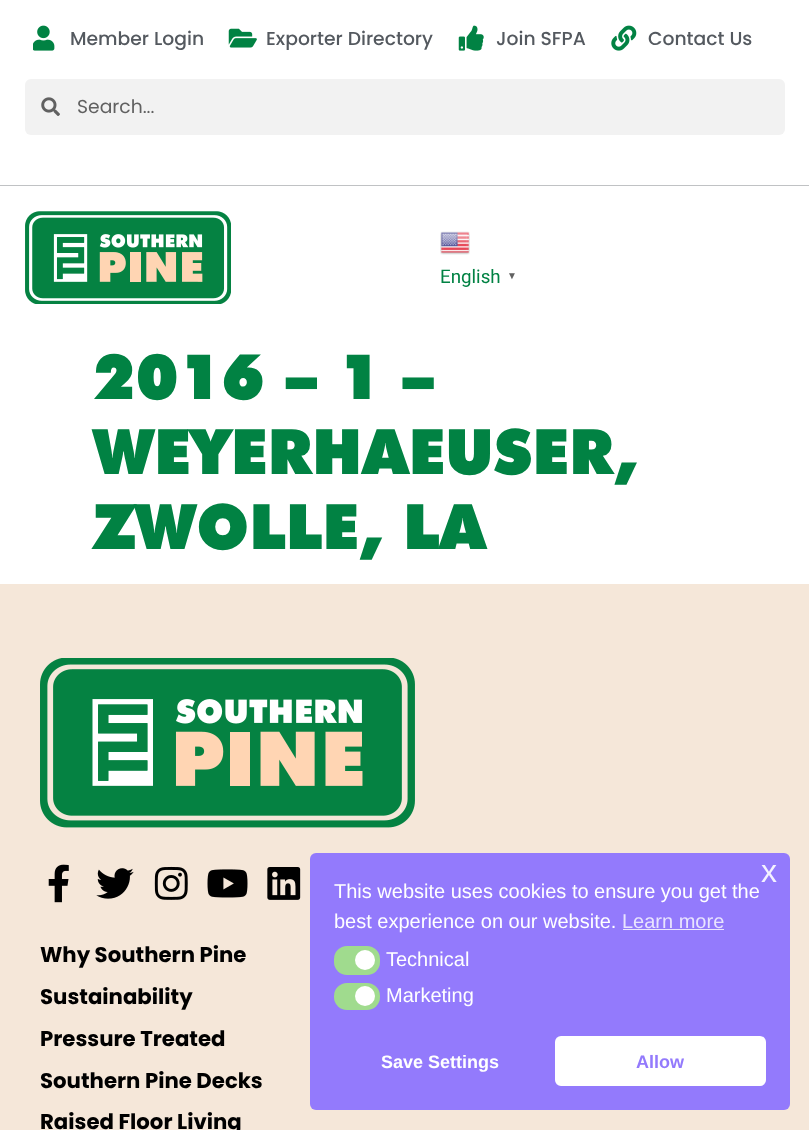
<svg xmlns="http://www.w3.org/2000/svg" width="809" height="1130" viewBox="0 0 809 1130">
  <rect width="100%" height="100%" fill="#ffffff"/>
  <image x="33" y="25" width="22" height="26" href="img1.png"/>
  <text x="70" y="45" font-family="Poppins" font-size="18.75" font-weight="500" fill="#54595f">Member Login</text>
  <image x="228" y="28" width="29" height="20" href="img2.png"/>
  <text x="266" y="45" font-family="Poppins" font-size="18.75" font-weight="500" fill="#54595f">Exporter Directory</text>
  <image x="458" y="25" width="26" height="26" href="img3.png"/>
  <text x="496" y="45" font-family="Poppins" font-size="18.75" font-weight="500" fill="#54595f">Join SFPA</text>
  <image x="611" y="25" width="26" height="26" href="img4.png"/>
  <text x="648" y="45" font-family="Poppins" font-size="18.75" font-weight="500" fill="#54595f">Contact Us</text>
  <rect x="25" y="79" width="760" height="56" rx="6" fill="#f2f2f2"/>
  <image x="41" y="97" width="19" height="19" href="img5.png"/>
  <text x="77" y="113" font-family="Poppins" font-size="18.75" fill="#616161">Search...</text>
  <rect x="0" y="185" width="809" height="1" fill="#c0c2c4"/>
  <image x="25" y="211" width="206" height="93" href="img6.png"/>
  <image x="440" y="231" width="30" height="24" href="img7.png"/>
  <text x="440" y="283" font-family="Roboto" font-size="18.75" fill="#018243">English</text>
  <text x="507" y="279" font-family="Liberation Sans" font-size="10" font-weight="bold" fill="#616161">▼</text>
  <text x="93" y="399" font-family="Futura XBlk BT" font-size="62.5" font-weight="800" fill="#018243">2016 – 1 –</text>
  <text x="93" y="474" font-family="Futura XBlk BT" font-size="62.5" font-weight="800" fill="#018243">WEYERHAEUSER,</text>
  <text x="93" y="549" font-family="Futura XBlk BT" font-size="62.5" font-weight="800" fill="#018243">ZWOLLE, LA</text>
  <rect x="0" y="584" width="809" height="546" fill="#f5e7d9"/>
  <image x="40" y="658" width="375" height="170" href="img8.png"/>
  <image x="48" y="864" width="21" height="39" href="img9.png"/>
  <image x="96" y="868" width="38" height="31" href="img10.png"/>
  <image x="154" y="866" width="34" height="34" href="img11.png"/>
  <image x="207" y="869" width="41" height="29" href="img12.png"/>
  <image x="267" y="867" width="34" height="33" href="img13.png"/>
  <text x="40" y="962" font-family="Poppins" font-size="21.25" font-weight="bold" fill="#000000">Why Southern Pine</text>
  <text x="40" y="1004" font-family="Poppins" font-size="21.25" font-weight="bold" fill="#000000">Sustainability</text>
  <text x="40" y="1046" font-family="Poppins" font-size="21.25" font-weight="bold" fill="#000000">Pressure Treated</text>
  <text x="40" y="1088" font-family="Poppins" font-size="21.25" font-weight="bold" fill="#000000">Southern Pine Decks</text>
  <text x="40" y="1129" font-family="Poppins" font-size="21.25" font-weight="bold" fill="#000000">Raised Floor Living</text>
  <rect x="310" y="853" width="480" height="257" rx="6" fill="#937afc"/>
  <text x="761" y="882" font-family="Liberation Sans" font-size="32" fill="#f4f2ff">x</text>
  <text x="334" y="898" font-family="Liberation Sans" font-size="20" fill="#ffffff">This website uses cookies to ensure you get the</text>
  <text x="334" y="928" font-family="Liberation Sans" font-size="20" fill="#ffffff">best experience on our website.</text>
  <text x="622" y="928" font-family="Liberation Sans" font-size="20" fill="#e9e4fe">Learn more</text>
  <rect x="623" y="929" width="101" height="1" fill="#e9e4fe"/>
  <rect x="334" y="946" width="46" height="29" rx="13" fill="#a0db8e"/>
  <circle cx="365" cy="960" r="10" fill="#ffffff"/>
  <text x="386" y="966" font-family="Liberation Sans" font-size="20" fill="#ffffff">Technical</text>
  <rect x="334" y="983" width="46" height="27" rx="13" fill="#a0db8e"/>
  <circle cx="365" cy="996" r="10" fill="#ffffff"/>
  <text x="386" y="1002" font-family="Liberation Sans" font-size="20" fill="#ffffff">Marketing</text>
  <text x="381" y="1068" font-family="Liberation Sans" font-size="18" font-weight="bold" fill="#ffffff">Save Settings</text>
  <rect x="555" y="1036" width="211" height="50" rx="6" fill="#ffffff"/>
  <text x="636" y="1068" font-family="Liberation Sans" font-size="18" font-weight="bold" fill="#937afc">Allow</text>
</svg>
